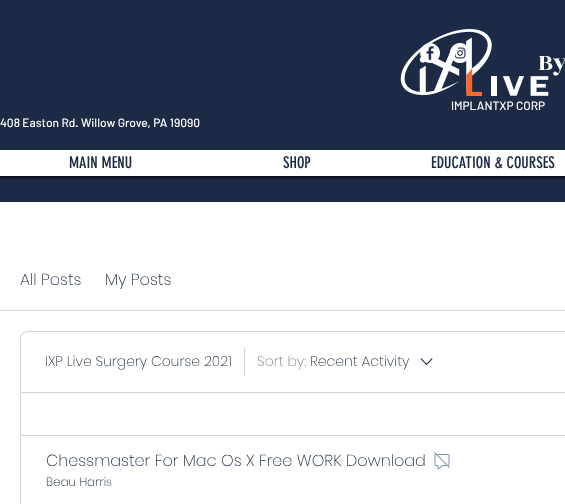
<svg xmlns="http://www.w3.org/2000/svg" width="565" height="504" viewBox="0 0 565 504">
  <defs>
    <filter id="blur1" x="-50%" y="-200%" width="200%" height="500%"><feGaussianBlur stdDeviation="1.5"/></filter>
  </defs>
  <rect width="100%" height="100%" fill="#ffffff"/>
  <rect x="0" y="0" width="565" height="202" fill="#1c2a45"/>
  <image x="420" y="43" width="20" height="20" href="img2.png"/>
  <image x="450" y="43" width="17" height="20" href="img3.png"/>
  <image x="400" y="29" width="149" height="67" href="img1.png"/>
  <text x="538" y="70" font-family="Rozha One" font-size="25" fill="#ffffff">By</text>
  <text x="451" y="110" font-family="Barlow" font-size="12" font-weight="500" fill="#ffffff">IMPLANTXP CORP</text>
  <text x="0" y="127" font-family="Barlow" font-size="12" font-weight="500" fill="#ffffff">408 Easton Rd. Willow Grove, PA 19090</text>
  <rect x="0" y="152" width="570" height="26" fill="#000000" fill-opacity="0.7" filter="url(#blur1)"/>
  <rect x="0" y="150" width="565" height="26" fill="#ffffff"/>
  <text x="69" y="168" font-family="'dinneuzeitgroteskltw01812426'" font-size="16" fill="#1c2a45">MAIN MENU</text>
  <text x="283" y="168" font-family="'dinneuzeitgroteskltw01812426'" font-size="16" fill="#1c2a45">SHOP</text>
  <text x="431" y="168" font-family="'dinneuzeitgroteskltw01812426'" font-size="16" fill="#1c2a45">EDUCATION &amp; COURSES</text>
  <rect x="0" y="310" width="565" height="1" fill="#d2d4da"/>
  <text x="20" y="285" font-family="Poppins" font-size="16" font-weight="200" fill="#1c2a45">All Posts</text>
  <text x="105" y="285" font-family="Poppins" font-size="16" font-weight="200" fill="#1c2a45">My Posts</text>
  <rect x="20.5" y="331.5" width="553" height="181" rx="7.5" fill="none" stroke="#d2d4da"/>
  <text x="45" y="366" font-family="Poppins" font-size="14" font-weight="200" fill="#1c2a45">IXP Live Surgery Course 2021</text>
  <rect x="244" y="348" width="1" height="28" fill="#d2d4da"/>
  <text x="257" y="366" font-family="Poppins" font-size="14" font-weight="200" fill="#777f8f">Sort by:</text>
  <text x="310" y="366" font-family="Poppins" font-size="14" font-weight="200" fill="#1c2a45">Recent Activity</text>
  <image x="420" y="358" width="13" height="8" href="img4.png"/>
  <rect x="21" y="392" width="544" height="1" fill="#d2d4da"/>
  <rect x="21" y="435" width="544" height="1" fill="#d2d4da"/>
  <text x="46" y="466" font-family="Poppins" font-size="16" font-weight="200" fill="#1c2a45">Chessmaster For Mac Os X Free WORK Download</text>
  <image x="434" y="452" width="16" height="18" href="img5.png"/>
  <text x="46" y="486" font-family="Poppins" font-size="12" font-weight="200" fill="#1c2a45">Beau Harris</text>
</svg>
